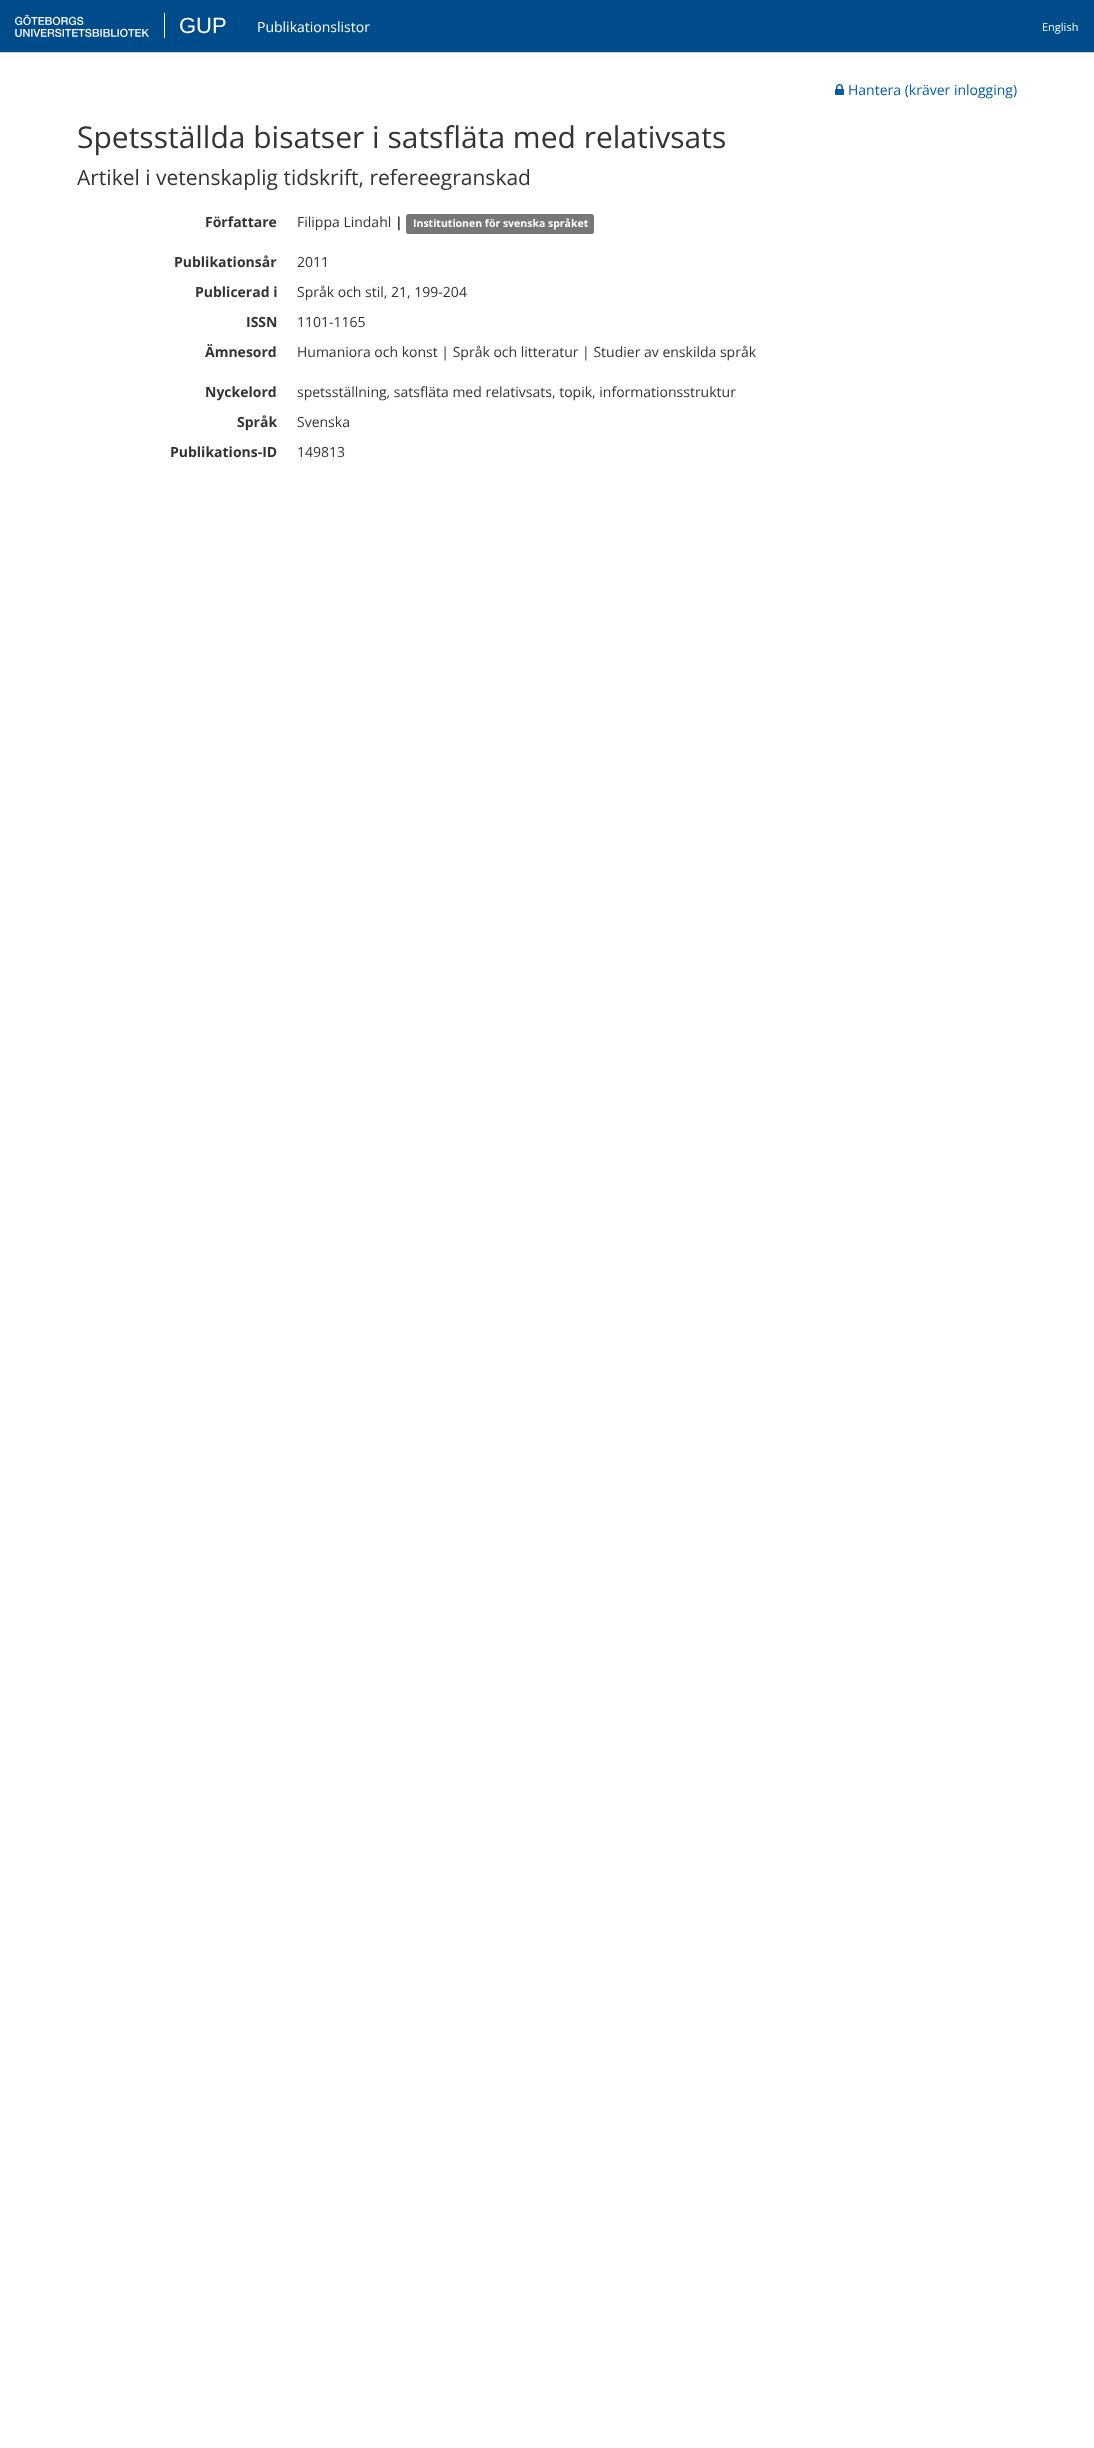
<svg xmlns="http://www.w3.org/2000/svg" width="1094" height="2448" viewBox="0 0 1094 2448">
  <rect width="100%" height="100%" fill="#ffffff"/>
  <rect x="0" y="0" width="1094" height="52" fill="#004b89"/>
  <rect x="0" y="52" width="1094" height="1" fill="#cccccc"/>
  <image x="15" y="15" width="134" height="22" href="img1.png"/>
  <rect x="164" y="13" width="1" height="25" fill="#ffffff"/>
  <text x="179" y="33" font-family="Liberation Sans" font-size="22" fill="#ffffff">GUP</text>
  <text x="257" y="32" font-family="Open Sans" font-size="14" fill="#ffffff">Publikationslistor</text>
  <text x="1042" y="31" font-family="Open Sans" font-size="11" fill="#ffffff">English</text>
  <image x="835" y="84" width="9" height="11" href="img2.png"/>
  <text x="848" y="95" font-family="Open Sans" font-size="14" fill="#025da6">Hantera (kräver inlogging)</text>
  <text x="77" y="148" font-family="Open Sans" font-size="30" fill="#333333">Spetsställda bisatser i satsfläta med relativsats</text>
  <text x="77" y="185" font-family="Open Sans" font-size="21" fill="#333333">Artikel i vetenskaplig tidskrift, refereegranskad</text>
  <text x="205" y="227" font-family="Open Sans" font-size="14" font-weight="bold" fill="#333333">Författare</text>
  <text x="297" y="227" font-family="Open Sans" font-size="14" fill="#333333">Filippa Lindahl</text>
  <text x="395" y="227" font-family="Open Sans" font-size="14" font-weight="bold" fill="#333333">|</text>
  <rect x="406" y="214" width="188" height="20" rx="2.5" fill="#777777"/>
  <text x="413" y="227" font-family="Open Sans" font-size="10.5" font-weight="bold" fill="#ffffff">Institutionen för svenska språket</text>
  <text x="174" y="267" font-family="Open Sans" font-size="14" font-weight="bold" fill="#333333">Publikationsår</text>
  <text x="297" y="267" font-family="Open Sans" font-size="14" fill="#333333">2011</text>
  <text x="195" y="297" font-family="Open Sans" font-size="14" font-weight="bold" fill="#333333">Publicerad i</text>
  <text x="297" y="297" font-family="Open Sans" font-size="14" fill="#333333">Språk och stil, 21, 199-204</text>
  <text x="246" y="327" font-family="Open Sans" font-size="14" font-weight="bold" fill="#333333">ISSN</text>
  <text x="297" y="327" font-family="Open Sans" font-size="14" fill="#333333">1101-1165</text>
  <text x="205" y="357" font-family="Open Sans" font-size="14" font-weight="bold" fill="#333333">Ämnesord</text>
  <text x="297" y="357" font-family="Open Sans" font-size="14" fill="#333333">Humaniora och konst | Språk och litteratur | Studier av enskilda språk</text>
  <text x="205" y="397" font-family="Open Sans" font-size="14" font-weight="bold" fill="#333333">Nyckelord</text>
  <text x="297" y="397" font-family="Open Sans" font-size="14" fill="#333333">spetsställning, satsfläta med relativsats, topik, informationsstruktur</text>
  <text x="237" y="427" font-family="Open Sans" font-size="14" font-weight="bold" fill="#333333">Språk</text>
  <text x="297" y="427" font-family="Open Sans" font-size="14" fill="#333333">Svenska</text>
  <text x="170" y="457" font-family="Open Sans" font-size="14" font-weight="bold" fill="#333333">Publikations-ID</text>
  <text x="297" y="457" font-family="Open Sans" font-size="14" fill="#333333">149813</text>
</svg>
